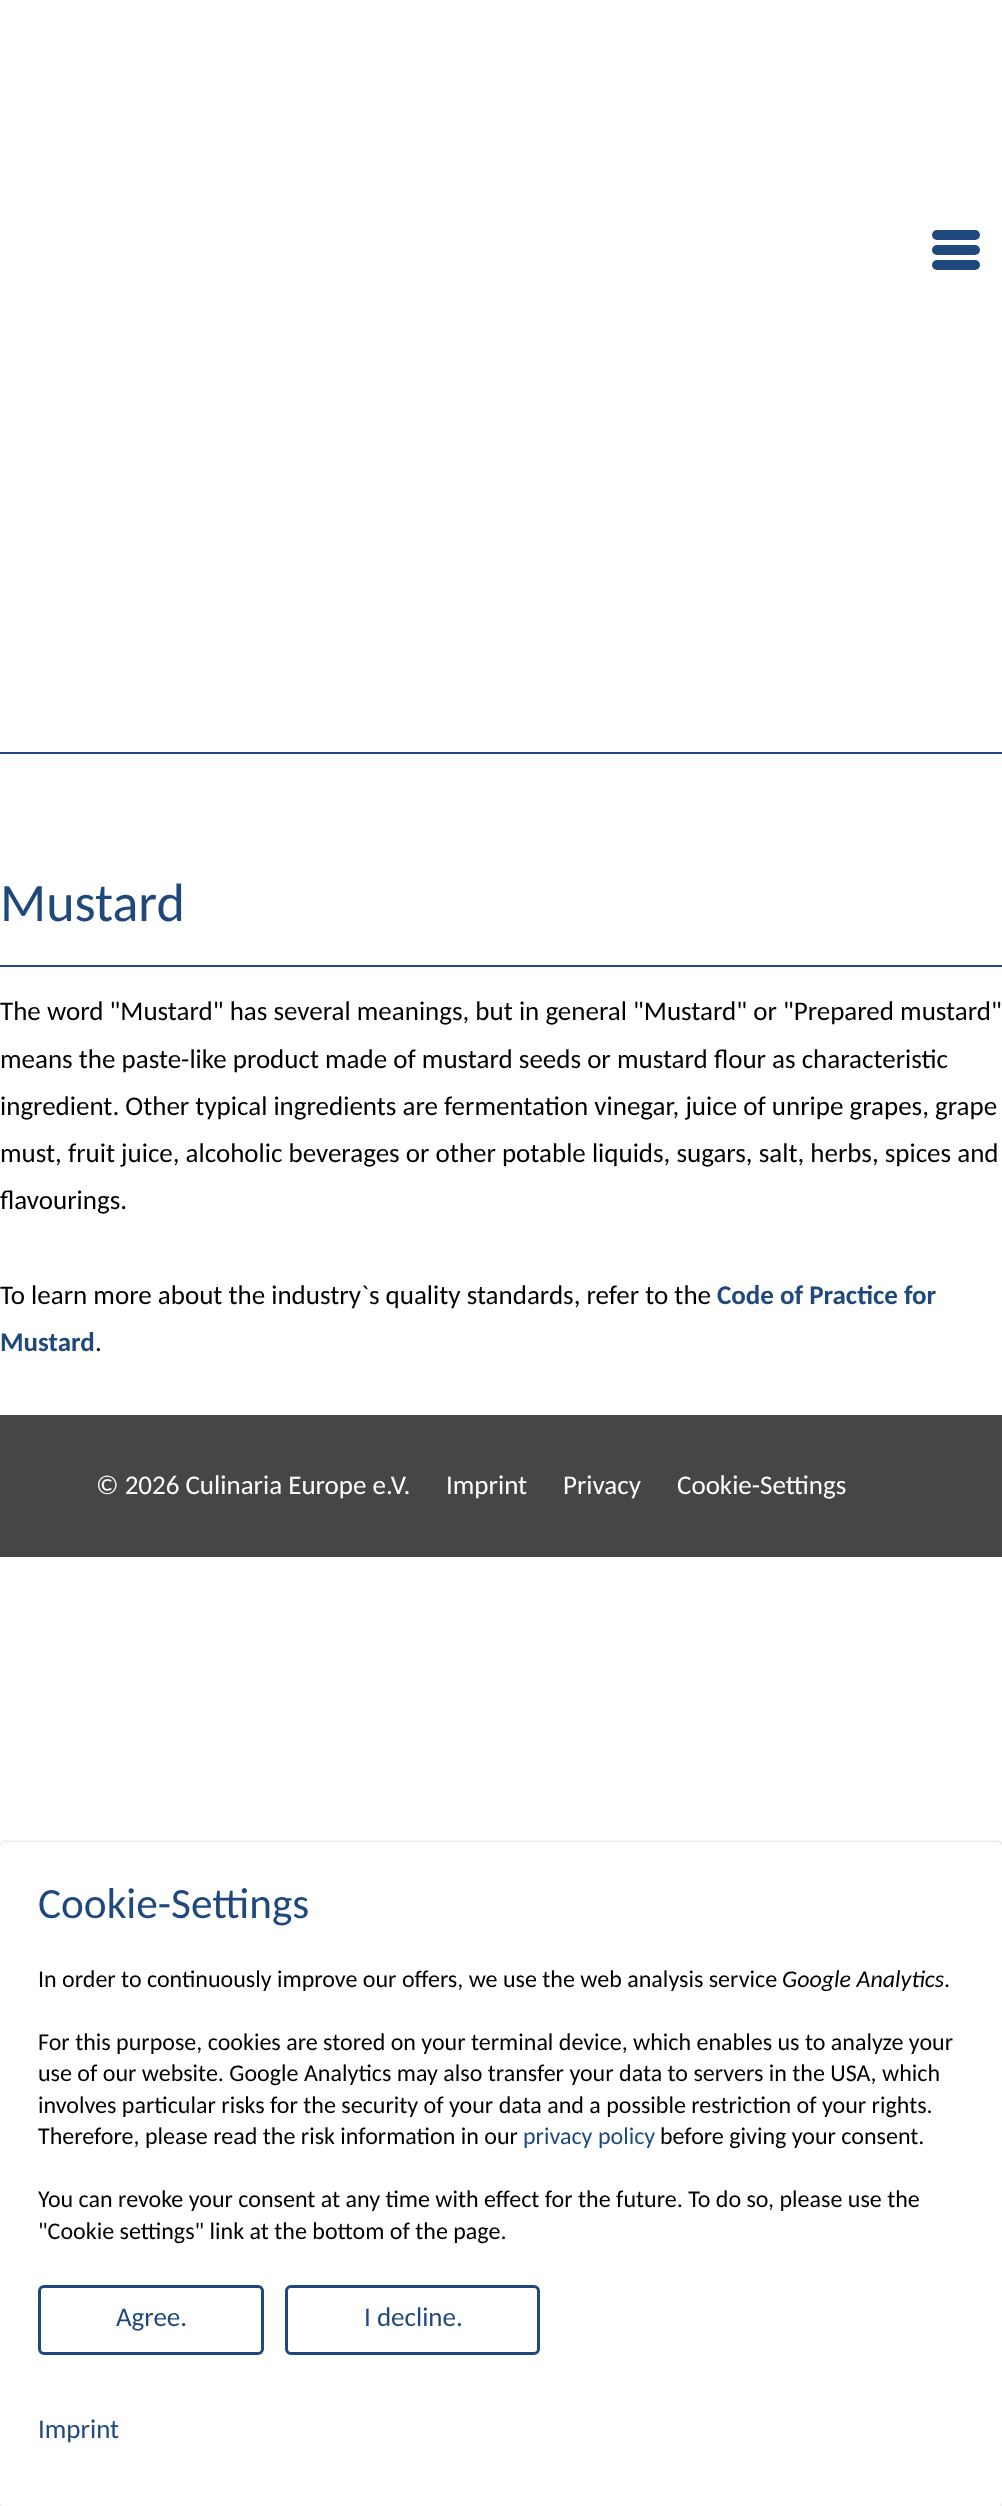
<svg xmlns="http://www.w3.org/2000/svg" width="1002" height="2506" viewBox="0 0 1002 2506">
  <defs>
    <filter id="blur1" x="-50%" y="-200%" width="200%" height="500%"><feGaussianBlur stdDeviation="1"/></filter>
  </defs>
  <rect width="100%" height="100%" fill="#ffffff"/>
  <text x="0" y="921" font-family="Carlito" font-size="54" fill="#1f497d">Mustard</text>
  <rect x="0" y="965" width="1002" height="2" fill="#1f497d"/>
  <text x="0" y="1020" font-family="Carlito" font-size="27" fill="#000000">The word "Mustard" has several meanings, but in general "Mustard" or "Prepared mustard"</text>
  <text x="0" y="1068" font-family="Carlito" font-size="27" fill="#000000">means the paste-like product made of mustard seeds or mustard flour as characteristic</text>
  <text x="0" y="1115" font-family="Carlito" font-size="27" fill="#000000">ingredient. Other typical ingredients are fermentation vinegar, juice of unripe grapes, grape</text>
  <text x="0" y="1162" font-family="Carlito" font-size="27" fill="#000000">must, fruit juice, alcoholic beverages or other potable liquids, sugars, salt, herbs, spices and</text>
  <text x="0" y="1209" font-family="Carlito" font-size="27" fill="#000000">flavourings.</text>
  <text x="0" y="1304" font-family="Carlito" font-size="27" fill="#000000">To learn more about the industry`s quality standards, refer to the</text>
  <text x="717" y="1304" font-family="Carlito" font-size="27" font-weight="bold" fill="#1f497d">Code of Practice for</text>
  <text x="0" y="1351" font-family="Carlito" font-size="27" font-weight="bold" fill="#1f497d">Mustard</text>
  <text x="95" y="1351" font-family="Carlito" font-size="27" fill="#000000">.</text>
  <rect x="0" y="1415" width="1002" height="142" fill="#464646"/>
  <text x="96" y="1494" font-family="Carlito" font-size="27" fill="#ffffff">© 2026 Culinaria Europe e.V.</text>
  <text x="446" y="1494" font-family="Carlito" font-size="27" fill="#ffffff">Imprint</text>
  <text x="563" y="1494" font-family="Carlito" font-size="27" fill="#ffffff">Privacy</text>
  <text x="677" y="1494" font-family="Carlito" font-size="27" fill="#ffffff">Cookie-Settings</text>
  <rect x="0" y="752" width="1002" height="2" fill="#1f497d"/>
  <rect x="932" y="245" width="48" height="10" rx="5" fill="#1f497d"/>
  <rect x="932" y="230" width="48" height="10" rx="5" fill="#1f497d"/>
  <rect x="932" y="260" width="48" height="10" rx="5" fill="#1f497d"/>
  <rect x="-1" y="1841" width="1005" height="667" rx="6" fill="#e0e0e0" filter="url(#blur1)"/>
  <rect x="0" y="1842" width="1002" height="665" rx="5" fill="#ffffff"/>
  <text x="38" y="1918" font-family="Carlito" font-size="43.25" fill="#1f497d">Cookie-Settings</text>
  <text x="38" y="1987" font-family="Carlito" font-size="24" fill="#000000">In order to continuously improve our offers, we use the web analysis service</text>
  <text x="782" y="1987" font-family="Carlito" font-size="24" font-style="italic" fill="#000000">Google Analytics</text>
  <text x="944" y="1987" font-family="Carlito" font-size="24" fill="#000000">.</text>
  <text x="38" y="2050" font-family="Carlito" font-size="24" fill="#000000">For this purpose, cookies are stored on your terminal device, which enables us to analyze your</text>
  <text x="38" y="2081" font-family="Carlito" font-size="24" fill="#000000">use of our website. Google Analytics may also transfer your data to servers in the USA, which</text>
  <text x="38" y="2113" font-family="Carlito" font-size="24" fill="#000000">involves particular risks for the security of your data and a possible restriction of your rights.</text>
  <text x="38" y="2144" font-family="Carlito" font-size="24" fill="#000000">Therefore, please read the risk information in our</text>
  <text x="523" y="2144" font-family="Carlito" font-size="24" fill="#1f497d">privacy policy</text>
  <text x="660" y="2144" font-family="Carlito" font-size="24" fill="#000000">before giving your consent.</text>
  <text x="38" y="2207" font-family="Carlito" font-size="24" fill="#000000">You can revoke your consent at any time with effect for the future. To do so, please use the</text>
  <text x="38" y="2239" font-family="Carlito" font-size="24" fill="#000000">"Cookie settings" link at the bottom of the page.</text>
  <rect x="39.5" y="2286.5" width="223" height="67" rx="4.5" fill="none" stroke="#1f497d" stroke-width="3"/>
  <text x="116" y="2326" font-family="Carlito" font-size="27" fill="#1f497d">Agree.</text>
  <rect x="286.5" y="2286.5" width="252" height="67" rx="4.5" fill="none" stroke="#1f497d" stroke-width="3"/>
  <text x="364" y="2326" font-family="Carlito" font-size="27" fill="#1f497d">I decline.</text>
  <text x="38" y="2438" font-family="Carlito" font-size="27" fill="#1f497d">Imprint</text>
</svg>
